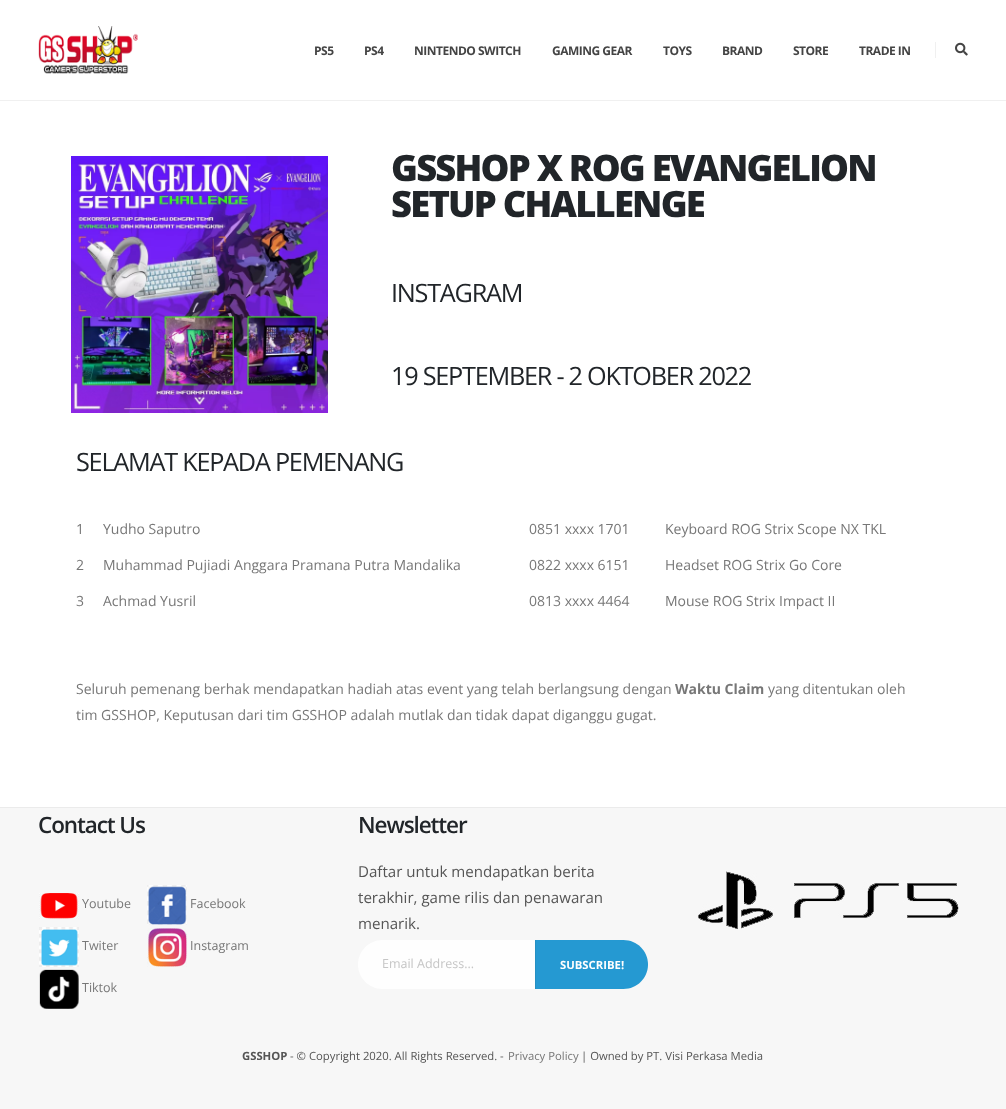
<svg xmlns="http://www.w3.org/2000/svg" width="1006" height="1109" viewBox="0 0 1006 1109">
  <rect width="100%" height="100%" fill="#ffffff"/>
  <image x="38" y="26" width="100" height="48" href="img1.png"/>
  <text x="314" y="55" font-family="Open Sans" font-size="12" font-weight="bold" letter-spacing="-0.5" fill="#444444">PS5</text>
  <text x="364" y="55" font-family="Open Sans" font-size="12" font-weight="bold" letter-spacing="-0.5" fill="#444444">PS4</text>
  <text x="414" y="55" font-family="Open Sans" font-size="12" font-weight="bold" letter-spacing="-0.5" fill="#444444">NINTENDO SWITCH</text>
  <text x="552" y="55" font-family="Open Sans" font-size="12" font-weight="bold" letter-spacing="-0.5" fill="#444444">GAMING GEAR</text>
  <text x="663" y="55" font-family="Open Sans" font-size="12" font-weight="bold" letter-spacing="-0.5" fill="#444444">TOYS</text>
  <text x="722" y="55" font-family="Open Sans" font-size="12" font-weight="bold" letter-spacing="-0.5" fill="#444444">BRAND</text>
  <text x="793" y="55" font-family="Open Sans" font-size="12" font-weight="bold" letter-spacing="-0.5" fill="#444444">STORE</text>
  <text x="859" y="55" font-family="Open Sans" font-size="12" font-weight="bold" letter-spacing="-0.5" fill="#444444">TRADE IN</text>
  <rect x="935" y="42" width="1" height="16" fill="#f0f0f0"/>
  <image x="955" y="42" width="13" height="14" href="img2.png"/>
  <rect x="0" y="100" width="1006" height="1" fill="#f0f0f0"/>
  <image x="71" y="156" width="257" height="257" href="img3.png"/>
  <text x="391" y="181" font-family="Open Sans" font-size="36.4" font-weight="800" letter-spacing="-1.8" fill="#212529">GSSHOP X ROG EVANGELION</text>
  <text x="391" y="217" font-family="Open Sans" font-size="36.4" font-weight="800" letter-spacing="-1.8" fill="#212529">SETUP CHALLENGE</text>
  <text x="391" y="302" font-family="Open Sans" font-size="25.25" letter-spacing="-1.25" fill="#212529">INSTAGRAM</text>
  <text x="391" y="385" font-family="Open Sans" font-size="25.25" letter-spacing="-1.25" fill="#212529">19 SEPTEMBER - 2 OKTOBER 2022</text>
  <text x="76" y="471" font-family="Open Sans" font-size="25.25" letter-spacing="-1.25" fill="#212529">SELAMAT KEPADA PEMENANG</text>
  <text x="76" y="534" font-family="Open Sans" font-size="14" fill="#777777">1</text>
  <text x="103" y="534" font-family="Open Sans" font-size="14" fill="#777777">Yudho Saputro</text>
  <text x="529" y="534" font-family="Open Sans" font-size="14" fill="#777777">0851 xxxx 1701</text>
  <text x="665" y="534" font-family="Open Sans" font-size="14" fill="#777777">Keyboard ROG Strix Scope NX TKL</text>
  <text x="76" y="570" font-family="Open Sans" font-size="14" fill="#777777">2</text>
  <text x="103" y="570" font-family="Open Sans" font-size="14" fill="#777777">Muhammad Pujiadi Anggara Pramana Putra Mandalika</text>
  <text x="529" y="570" font-family="Open Sans" font-size="14" fill="#777777">0822 xxxx 6151</text>
  <text x="665" y="570" font-family="Open Sans" font-size="14" fill="#777777">Headset ROG Strix Go Core</text>
  <text x="76" y="606" font-family="Open Sans" font-size="14" fill="#777777">3</text>
  <text x="103" y="606" font-family="Open Sans" font-size="14" fill="#777777">Achmad Yusril</text>
  <text x="529" y="606" font-family="Open Sans" font-size="14" fill="#777777">0813 xxxx 4464</text>
  <text x="665" y="606" font-family="Open Sans" font-size="14" fill="#777777">Mouse ROG Strix Impact II</text>
  <text x="76" y="694" font-family="Open Sans" font-size="14" fill="#777777">Seluruh pemenang berhak mendapatkan hadiah atas event yang telah berlangsung dengan</text>
  <text x="675" y="694" font-family="Open Sans" font-size="14" font-weight="bold" fill="#777777">Waktu Claim</text>
  <text x="768" y="694" font-family="Open Sans" font-size="14" fill="#777777">yang ditentukan oleh</text>
  <text x="76" y="720" font-family="Open Sans" font-size="14" fill="#777777">tim GSSHOP, Keputusan dari tim GSSHOP adalah mutlak dan tidak dapat diganggu gugat.</text>
  <rect x="0" y="808" width="1006" height="301" fill="#f7f7f7"/>
  <rect x="0" y="807" width="1006" height="1" fill="#ebebeb"/>
  <text x="38" y="833" font-family="Open Sans" font-size="22.5" font-weight="600" letter-spacing="-1.1" fill="#212529">Contact Us</text>
  <image x="39" y="893" width="40" height="26" href="img4.png"/>
  <text x="82" y="908" font-family="Open Sans" font-size="12.5" fill="#777777">Youtube</text>
  <image x="147" y="885" width="40" height="40" href="img5.png"/>
  <text x="190" y="908" font-family="Open Sans" font-size="12.5" fill="#777777">Facebook</text>
  <image x="39" y="927" width="40" height="40" href="img6.png"/>
  <text x="82" y="950" font-family="Open Sans" font-size="12.5" fill="#777777">Twiter</text>
  <image x="147" y="928" width="40" height="39" href="img7.png"/>
  <text x="190" y="950" font-family="Open Sans" font-size="12.5" fill="#777777">Instagram</text>
  <image x="39" y="969" width="40" height="40" href="img8.png"/>
  <text x="82" y="992" font-family="Open Sans" font-size="12.5" fill="#777777">Tiktok</text>
  <text x="358" y="833" font-family="Open Sans" font-size="22.5" font-weight="600" letter-spacing="-1.1" fill="#212529">Newsletter</text>
  <text x="358" y="877" font-family="Open Sans" font-size="15.1" fill="#555555">Daftar untuk mendapatkan berita</text>
  <text x="358" y="903" font-family="Open Sans" font-size="15.1" fill="#555555">terakhir, game rilis dan penawaran</text>
  <text x="358" y="929" font-family="Open Sans" font-size="15.1" fill="#555555">menarik.</text>
  <path d="M382.5 940H536V989H382.5C369 989 358 978 358 964.5C358 951 369 940 382.5 940Z" fill="#fefefe"/>
  <text x="382" y="968" font-family="Open Sans" font-size="12.5" fill="#c6c6c6">Email Address...</text>
  <path d="M535 940H623.5C637 940 648 951 648 964.5C648 978 637 989 623.5 989H535Z" fill="#2599d2"/>
  <rect x="535" y="940" width="1" height="49" fill="#258fc2"/>
  <text x="560" y="969" font-family="Open Sans" font-size="11.3" font-weight="bold" fill="#fefefe">SUBSCRIBE!</text>
  <image x="697" y="871" width="262" height="59" href="img9.png"/>
  <text x="242" y="1060" font-family="Open Sans" font-size="11.3" font-weight="bold" fill="#555555">GSSHOP</text>
  <text x="290" y="1060" font-family="Open Sans" font-size="11.3" fill="#555555">- © Copyright 2020. All Rights Reserved. -</text>
  <text x="508" y="1060" font-family="Open Sans" font-size="11.3" fill="#777777">Privacy Policy</text>
  <text x="581" y="1060" font-family="Open Sans" font-size="11.3" fill="#555555">| Owned by PT. Visi Perkasa Media</text>
</svg>
